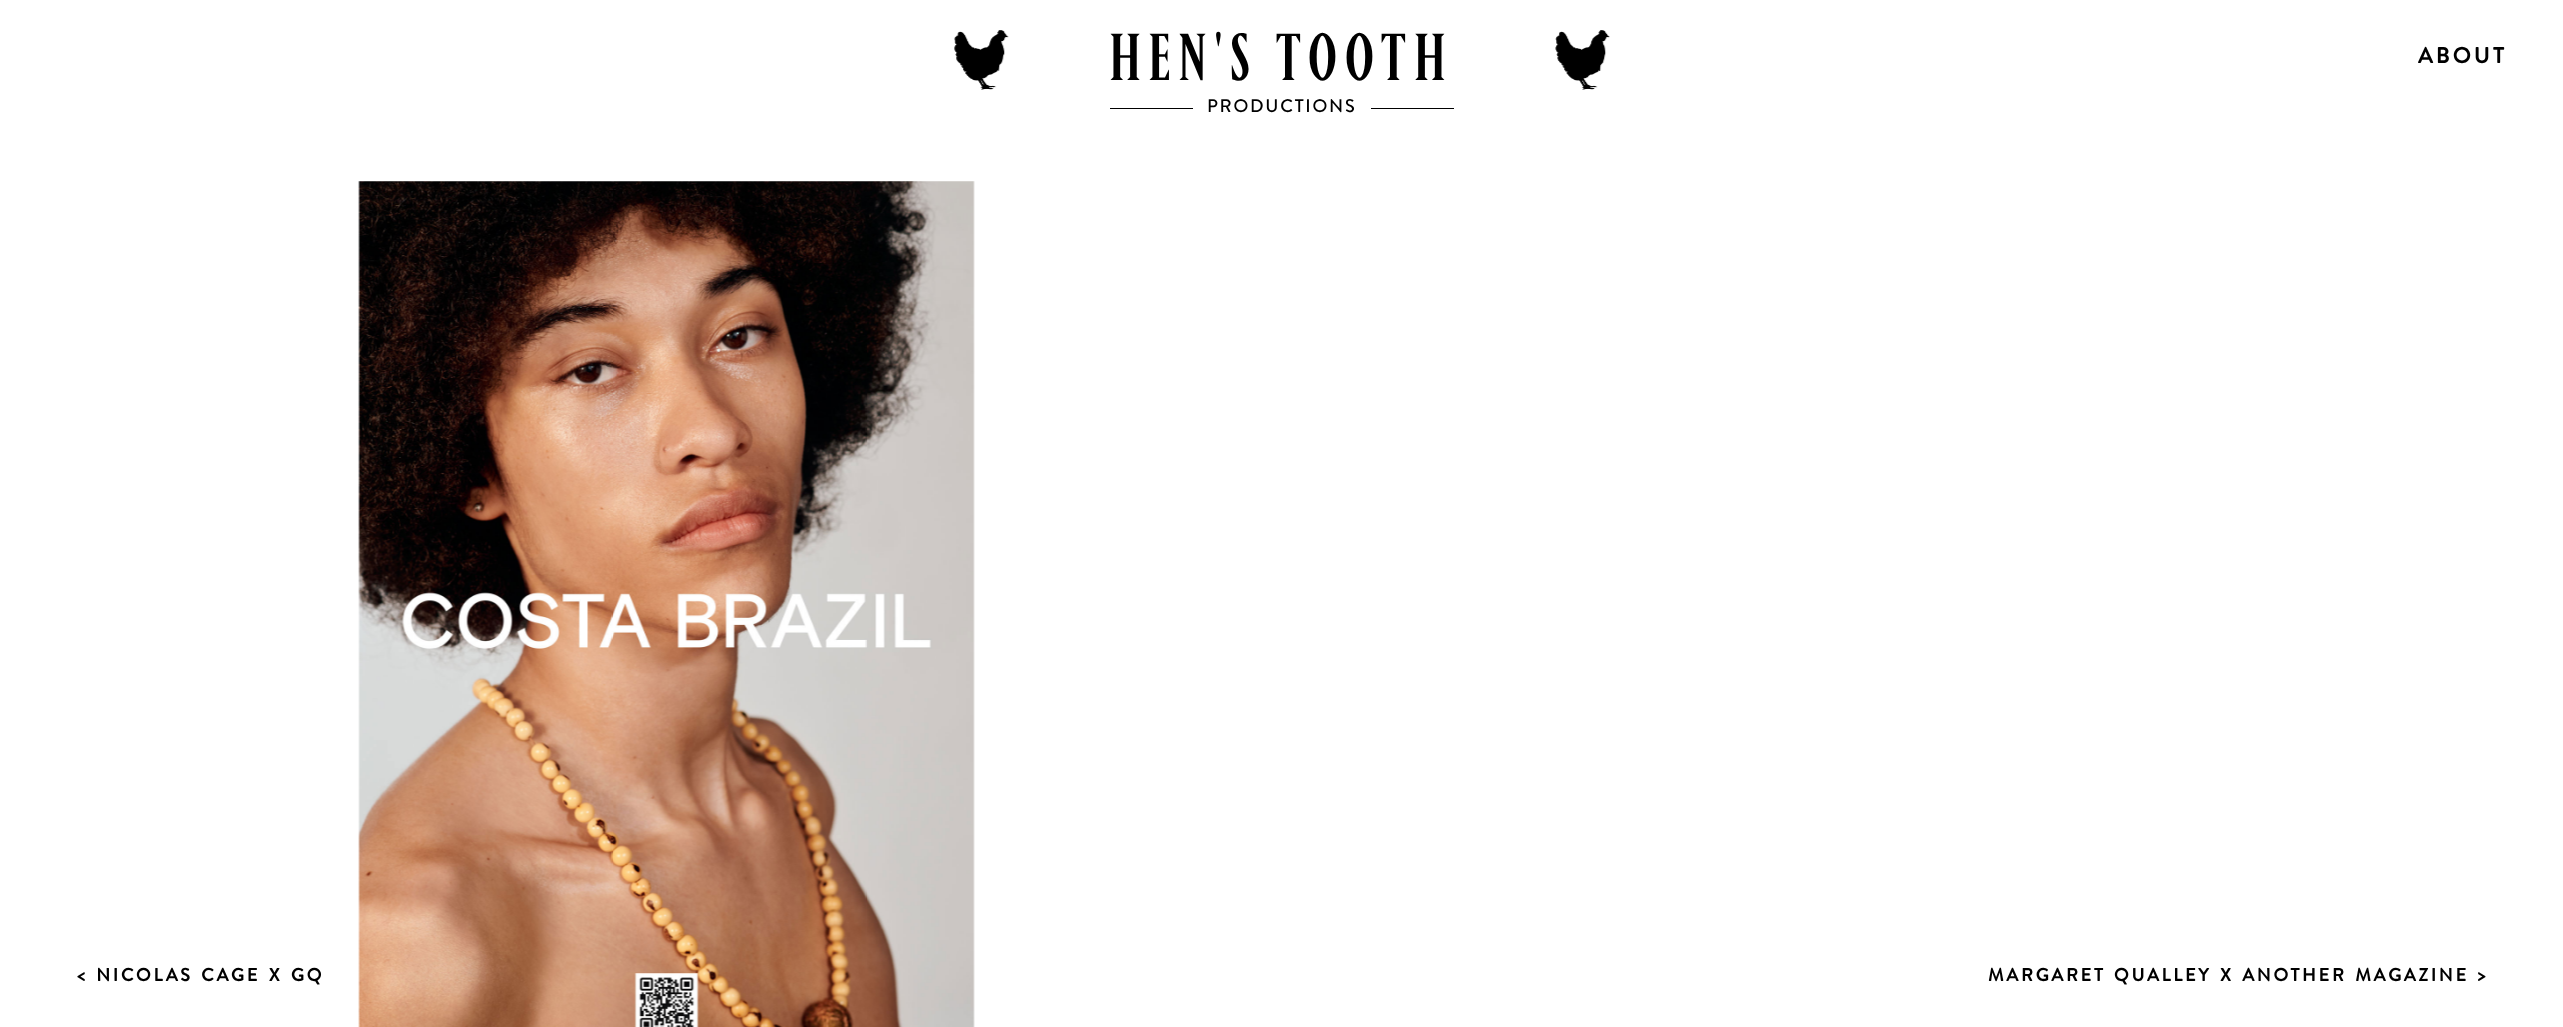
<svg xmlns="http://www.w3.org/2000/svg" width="2563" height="1027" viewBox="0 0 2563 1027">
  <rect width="100%" height="100%" fill="#ffffff"/>
  <image x="954" y="30" width="55" height="60" href="img1.png"/>
  <text x="1110" y="80" font-family="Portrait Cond" font-size="70" font-weight="500" letter-spacing="8.75" fill="#000000">HEN'S TOOTH</text>
  <rect x="1110" y="108" width="344" height="1" fill="#000000"/>
  <rect x="1193" y="108" width="178" height="1" fill="#ffffff"/>
  <text x="1207" y="112" font-family="Brandon Grotesque" font-size="18.25" font-weight="500" letter-spacing="1.75" fill="#000000">PRODUCTIONS</text>
  <image x="1555" y="30" width="55" height="60" href="img2.png"/>
  <text x="2418" y="63" font-family="Brandon Grotesque" font-size="22" font-weight="bold" letter-spacing="3.25" fill="#000000">ABOUT</text>
  <image x="358" y="181" width="617" height="846" href="img3.png"/>
  <text x="77" y="981" word-spacing="2" font-family="Brandon Grotesque" font-size="18" font-weight="bold" letter-spacing="2.7" fill="#000000">&lt; NICOLAS CAGE X GQ</text>
  <text x="1988" y="981" word-spacing="2" font-family="Brandon Grotesque" font-size="18" font-weight="bold" letter-spacing="2.7" fill="#000000">MARGARET QUALLEY X ANOTHER MAGAZINE &gt;</text>
</svg>
